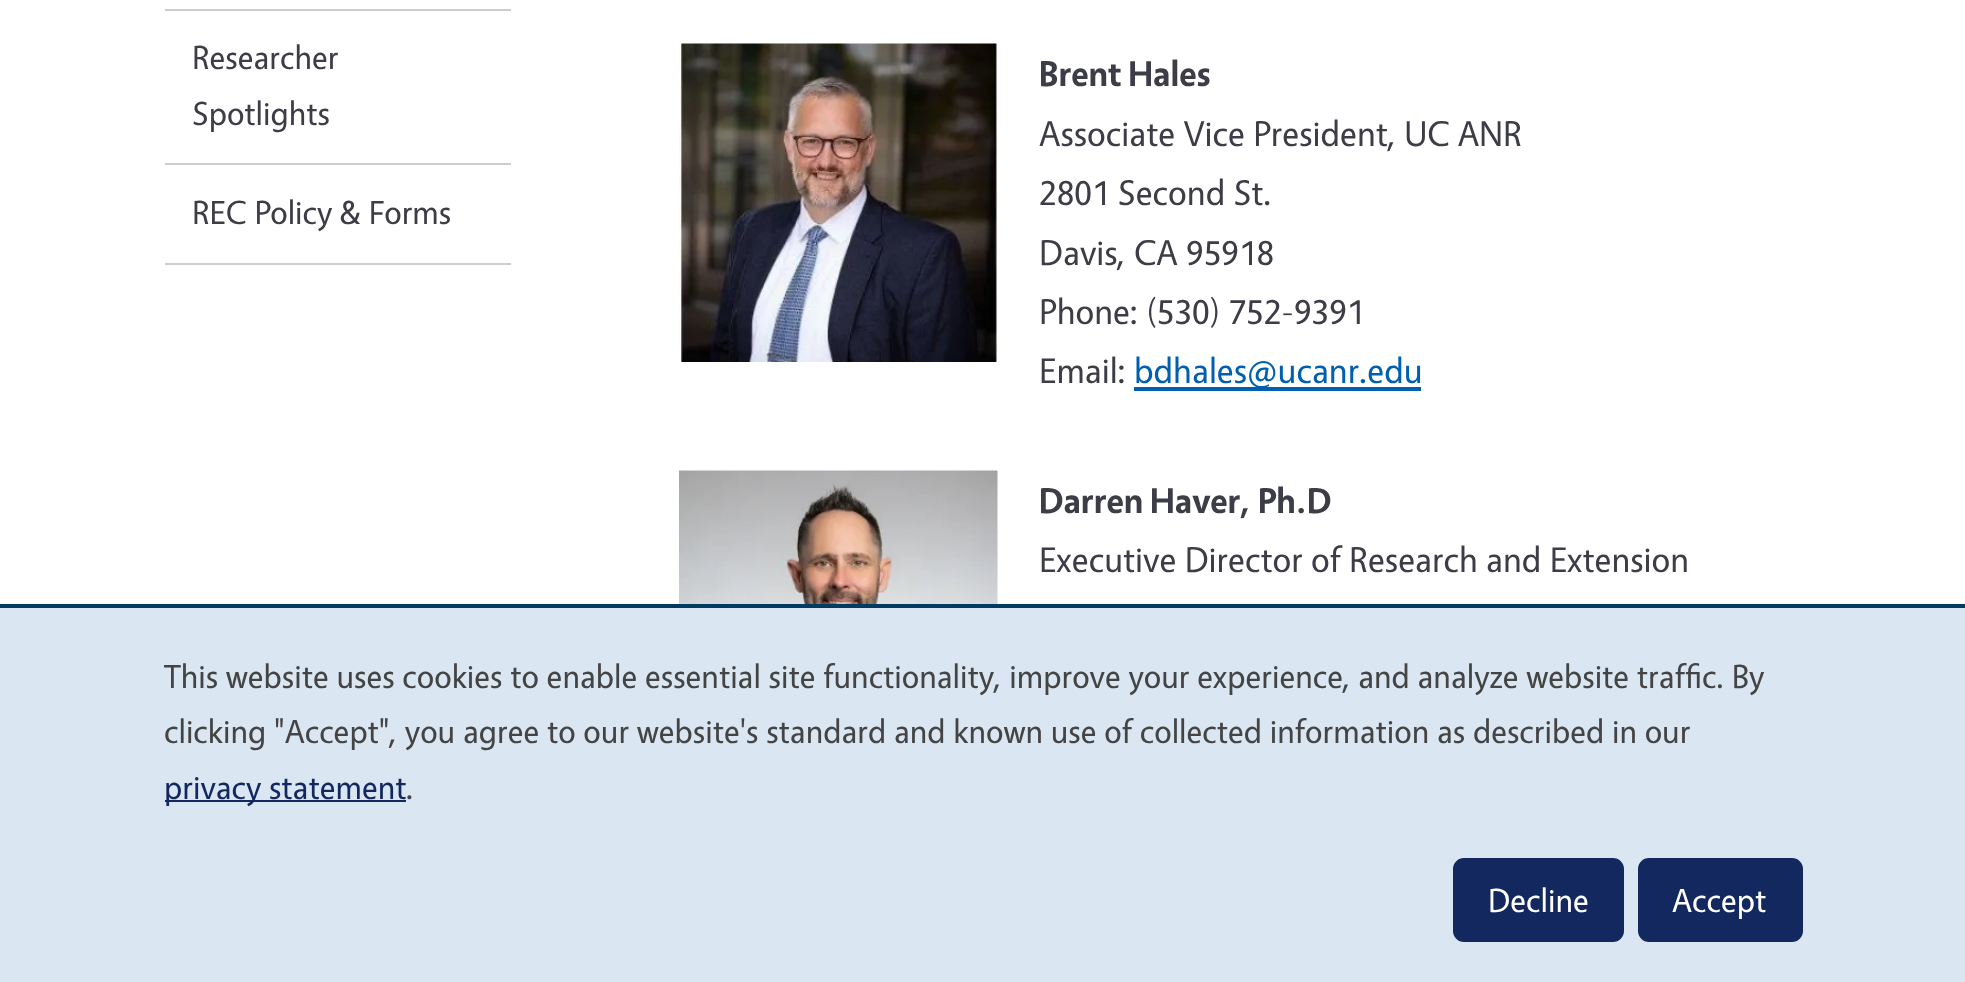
<svg xmlns="http://www.w3.org/2000/svg" width="1965" height="982" viewBox="0 0 1965 982">
  <rect width="100%" height="100%" fill="#ffffff"/>
  <rect x="165" y="9" width="346" height="2" fill="#cccccc"/>
  <rect x="165" y="163" width="346" height="2" fill="#cccccc"/>
  <text x="192" y="69" font-family="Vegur" font-size="33.6" fill="#3d3d47">Researcher</text>
  <text x="192" y="125" font-family="Vegur" font-size="33.6" fill="#3d3d47">Spotlights</text>
  <rect x="165" y="263" width="346" height="2" fill="#cccccc"/>
  <text x="192" y="224" font-family="Vegur" font-size="33.6" fill="#3d3d47">REC Policy &amp; Forms</text>
  <image x="679" y="43" width="319" height="319" href="img1.png"/>
  <text x="1039" y="86" font-family="Vegur" font-size="36" font-weight="bold" fill="#3d3d47">Brent Hales</text>
  <text x="1039" y="146" font-family="Vegur" font-size="36" fill="#3d3d47">Associate Vice President, UC ANR</text>
  <text x="1039" y="205" font-family="Vegur" font-size="36" fill="#3d3d47">2801 Second St.</text>
  <text x="1039" y="265" font-family="Vegur" font-size="36" fill="#3d3d47">Davis, CA 95918</text>
  <text x="1039" y="324" font-family="Vegur" font-size="36" fill="#3d3d47">Phone: (530) 752-9391</text>
  <text x="1039" y="383" font-family="Vegur" font-size="36" fill="#3d3d47">Email:</text>
  <rect x="1134" y="387" width="287" height="4" fill="#005fae"/>
  <text x="1134" y="383" font-family="Vegur" font-size="36" fill="#005fae">bdhales@ucanr.edu</text>
  <image x="679" y="470" width="319" height="134" href="img2.png"/>
  <text x="1039" y="513" font-family="Vegur" font-size="36" font-weight="bold" fill="#3d3d47">Darren Haver, Ph.D</text>
  <text x="1039" y="572" font-family="Vegur" font-size="36" fill="#3d3d47">Executive Director of Research and Extension</text>
  <rect x="0" y="608" width="1965" height="374" fill="#dae7f3"/>
  <rect x="0" y="604" width="1965" height="4" fill="#003c61"/>
  <text x="164" y="688" font-family="Vegur" font-size="33.6" fill="#444444">This website uses cookies to enable essential site functionality, improve your experience, and analyze website traffic. By</text>
  <text x="164" y="743" font-family="Vegur" font-size="33.6" fill="#444444">clicking "Accept", you agree to our website's standard and known use of collected information as described in our</text>
  <rect x="165" y="800" width="241" height="2" fill="#12285f"/>
  <text x="164" y="799" font-family="Vegur" font-size="33.6" fill="#12285f">privacy statement</text>
  <text x="406" y="799" font-family="Vegur" font-size="33.6" fill="#444444">.</text>
  <rect x="1455.5" y="860.5" width="166" height="79" rx="8.5" fill="#12285f" stroke="#12285f" stroke-width="5"/>
  <text x="1488" y="912" font-family="Vegur" font-size="33.6" fill="#ffffff">Decline</text>
  <rect x="1640.5" y="860.5" width="160" height="79" rx="8.5" fill="#12285f" stroke="#12285f" stroke-width="5"/>
  <text x="1672" y="912" font-family="Vegur" font-size="33.6" fill="#ffffff">Accept</text>
</svg>
